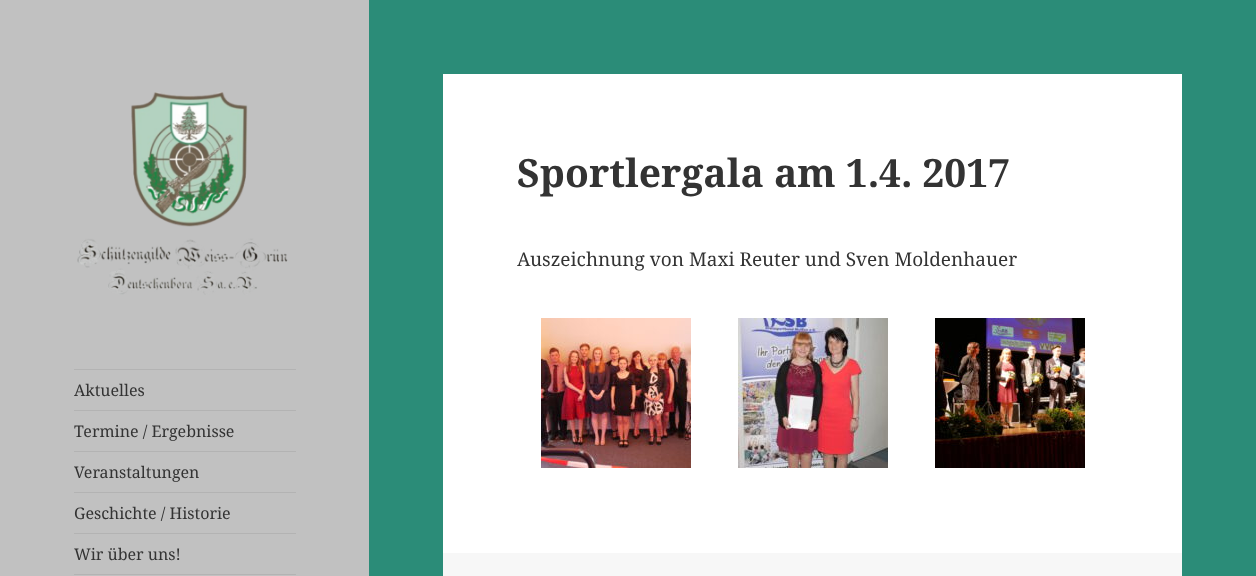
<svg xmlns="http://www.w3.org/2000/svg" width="1256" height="576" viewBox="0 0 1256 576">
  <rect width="100%" height="100%" fill="#2b8c78"/>
  <rect x="0" y="0" width="369" height="576" fill="#c1c1c1"/>
  <rect x="443" y="74" width="739" height="479" fill="#ffffff"/>
  <text x="517" y="187" font-family="Noto Serif" font-size="39" font-weight="bold" fill="#333333">Sportlergala am 1.4. 2017</text>
  <text x="517" y="266" font-family="Noto Serif" font-size="19" fill="#333333">Auszeichnung von Maxi Reuter und Sven Moldenhauer</text>
  <image x="541" y="318" width="150" height="150" href="img1.png"/>
  <image x="738" y="318" width="150" height="150" href="img2.png"/>
  <image x="935" y="318" width="150" height="150" href="img3.png"/>
  <rect x="443" y="553" width="739" height="23" fill="#f7f7f7"/>
  <image x="77" y="92" width="211" height="203" href="img4.png"/>
  <rect x="74" y="369" width="222" height="1" fill="#b3b3b3"/>
  <text x="74" y="396" font-family="Noto Serif" font-size="16" fill="#333333">Aktuelles</text>
  <rect x="74" y="410" width="222" height="1" fill="#b3b3b3"/>
  <text x="74" y="437" font-family="Noto Serif" font-size="16" fill="#333333">Termine / Ergebnisse</text>
  <rect x="74" y="451" width="222" height="1" fill="#b3b3b3"/>
  <text x="74" y="478" font-family="Noto Serif" font-size="16" fill="#333333">Veranstaltungen</text>
  <rect x="74" y="492" width="222" height="1" fill="#b3b3b3"/>
  <text x="74" y="519" font-family="Noto Serif" font-size="16" fill="#333333">Geschichte / Historie</text>
  <rect x="74" y="533" width="222" height="1" fill="#b3b3b3"/>
  <text x="74" y="560" font-family="Noto Serif" font-size="16" fill="#333333">Wir über uns!</text>
  <rect x="74" y="574" width="222" height="1" fill="#b3b3b3"/>
</svg>
